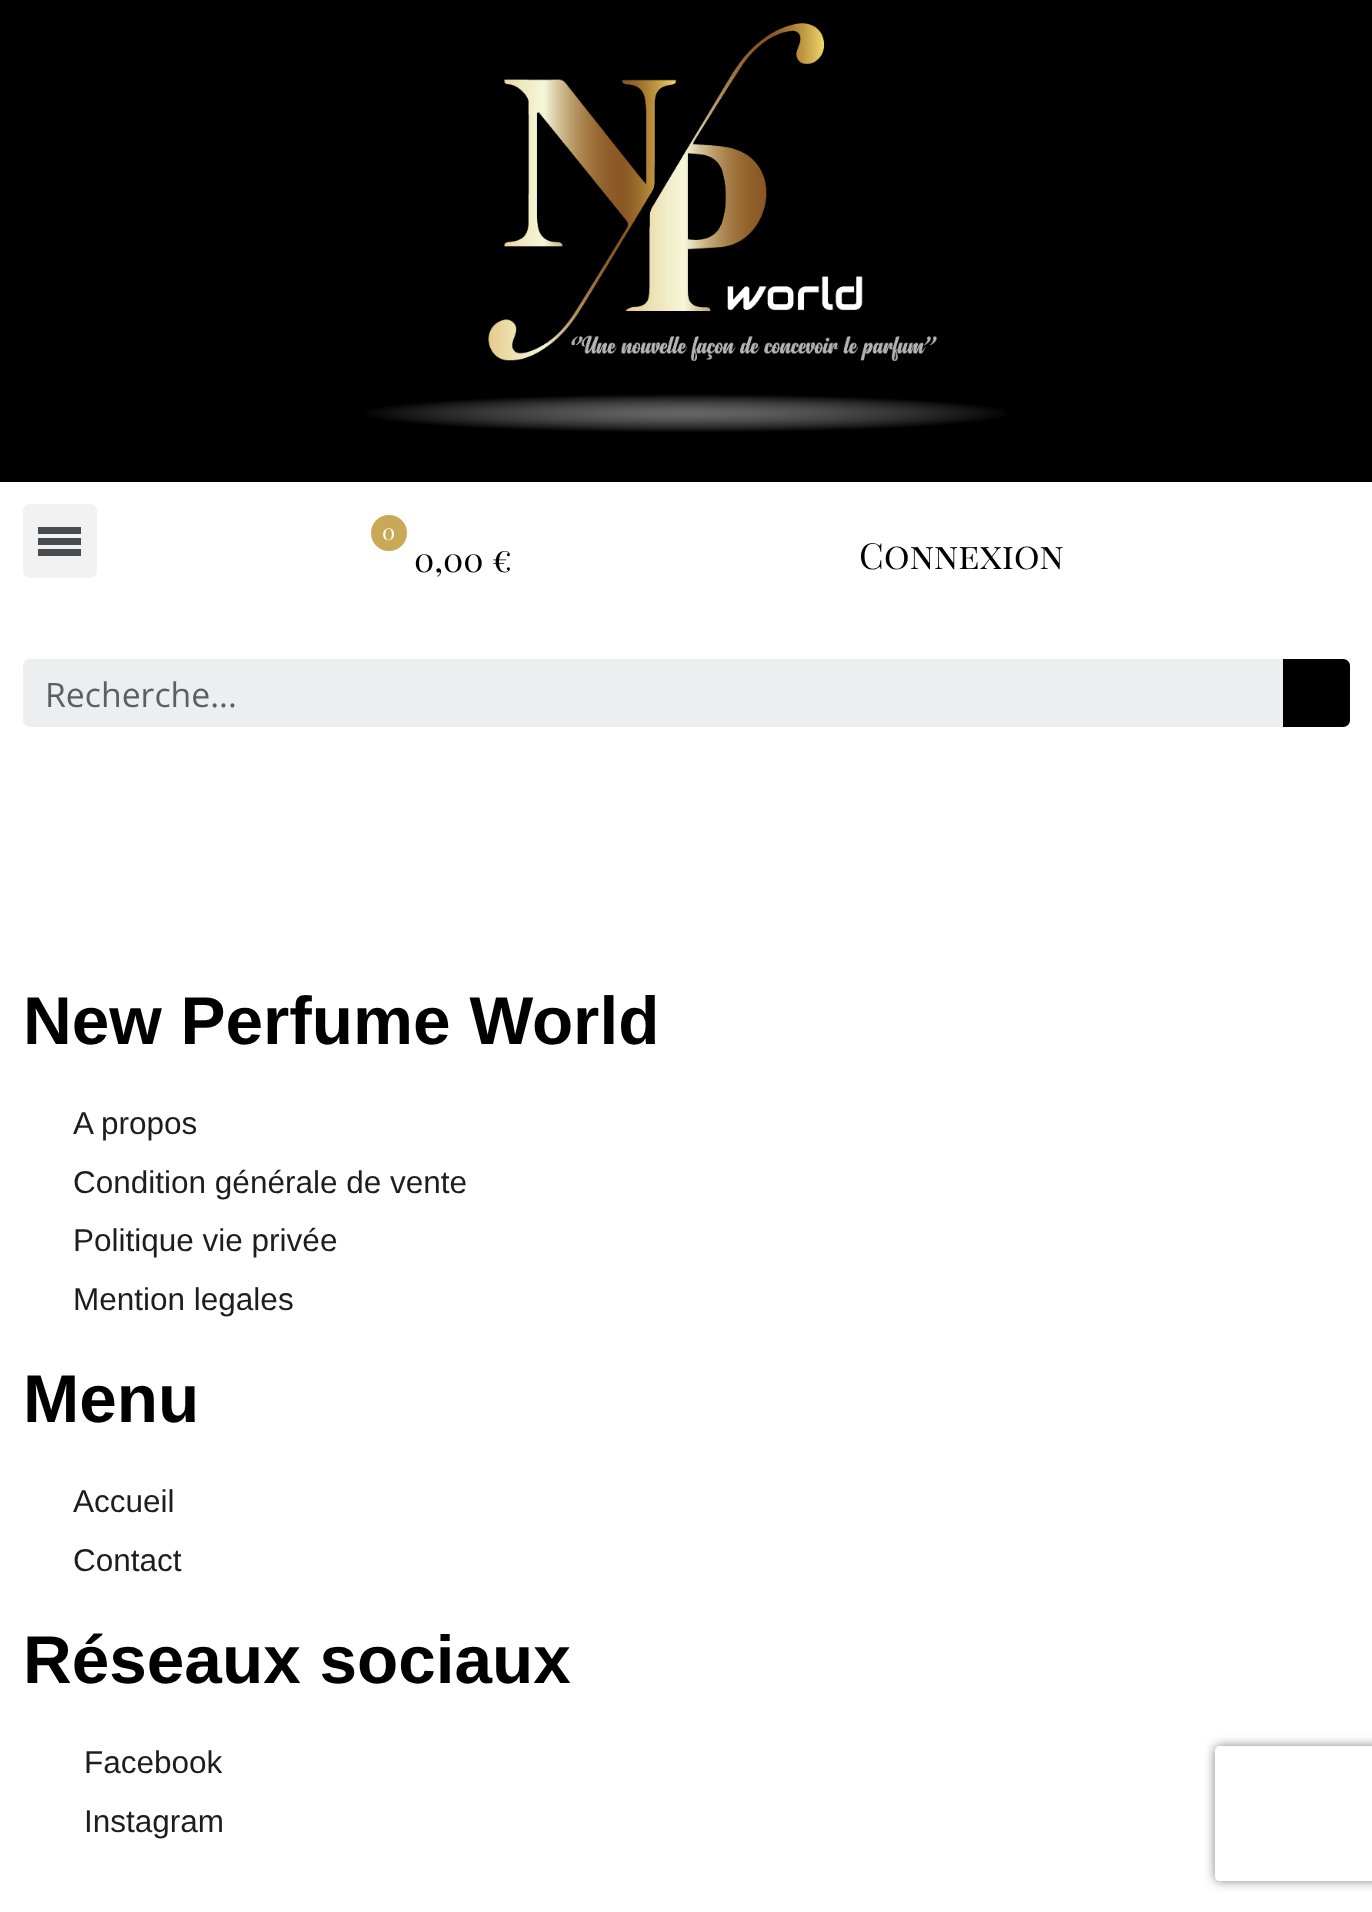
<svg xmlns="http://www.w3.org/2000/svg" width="1372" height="1912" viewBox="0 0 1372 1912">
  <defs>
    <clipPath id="clip1"><path d="M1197 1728H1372V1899H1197ZM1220 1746H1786C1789 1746 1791 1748 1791 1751V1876C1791 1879 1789 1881 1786 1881H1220C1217 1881 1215 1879 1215 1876V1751C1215 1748 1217 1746 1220 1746Z" clip-rule="evenodd"/></clipPath>
    <filter id="blur1" x="-50%" y="-200%" width="200%" height="500%"><feGaussianBlur stdDeviation="5.5"/></filter>
  </defs>
  <rect width="100%" height="100%" fill="#ffffff"/>
  <rect x="0" y="0" width="1372" height="482" fill="#000000"/>
  <image x="367" y="23" width="638" height="409" href="img1.png"/>
  <rect x="23" y="504" width="74" height="74" rx="7" fill="#f2f2f2"/>
  <rect x="38" y="538" width="43" height="7" fill="#494c4f"/>
  <rect x="38" y="527" width="43" height="7" fill="#494c4f"/>
  <rect x="38" y="549" width="43" height="7" fill="#494c4f"/>
  <circle cx="389" cy="533" r="18" fill="#c9a858"/>
  <text x="382" y="540" font-family="Playfair Display SC" font-size="22" fill="#ffffff">0</text>
  <text x="414" y="572" font-family="Playfair Display SC" font-size="33.75" fill="#000000">0,00 €</text>
  <text x="859" y="569" font-family="Playfair Display SC" font-size="36" fill="#000000">Connexion</text>
  <rect x="23" y="659" width="1327" height="68" rx="7" fill="#eceeef"/>
  <text x="45" y="707" font-family="Open Sans" font-size="33.75" fill="#5e5f60">Recherche...</text>
  <path d="M1283 659H1343C1347 659 1350 662 1350 666V720C1350 724 1347 727 1343 727H1283Z" fill="#000000"/>
  <text x="23" y="1044" font-family="Liberation Sans" font-size="67.5" font-weight="bold" fill="#000000">New Perfume World</text>
  <text x="73" y="1134" font-family="Liberation Sans" font-size="31.5" fill="#1d1d1f">A propos</text>
  <text x="73" y="1193" font-family="Liberation Sans" font-size="31.5" fill="#1d1d1f">Condition générale de vente</text>
  <text x="73" y="1251" font-family="Liberation Sans" font-size="31.5" fill="#1d1d1f">Politique vie privée</text>
  <text x="73" y="1310" font-family="Liberation Sans" font-size="31.5" fill="#1d1d1f">Mention legales</text>
  <text x="23" y="1422" font-family="Liberation Sans" font-size="67.5" font-weight="bold" fill="#000000">Menu</text>
  <text x="73" y="1512" font-family="Liberation Sans" font-size="31.5" fill="#1d1d1f">Accueil</text>
  <text x="73" y="1571" font-family="Liberation Sans" font-size="31.5" fill="#1d1d1f">Contact</text>
  <text x="23" y="1683" font-family="Liberation Sans" font-size="67.5" font-weight="bold" fill="#000000">Réseaux sociaux</text>
  <text x="84" y="1773" font-family="Liberation Sans" font-size="31.5" fill="#1d1d1f">Facebook</text>
  <text x="84" y="1832" font-family="Liberation Sans" font-size="31.5" fill="#1d1d1f">Instagram</text>
  <g clip-path="url(#clip1)">
    <rect x="1215" y="1746" width="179" height="135" rx="5" fill="#808080" filter="url(#blur1)"/>
  </g>
</svg>
